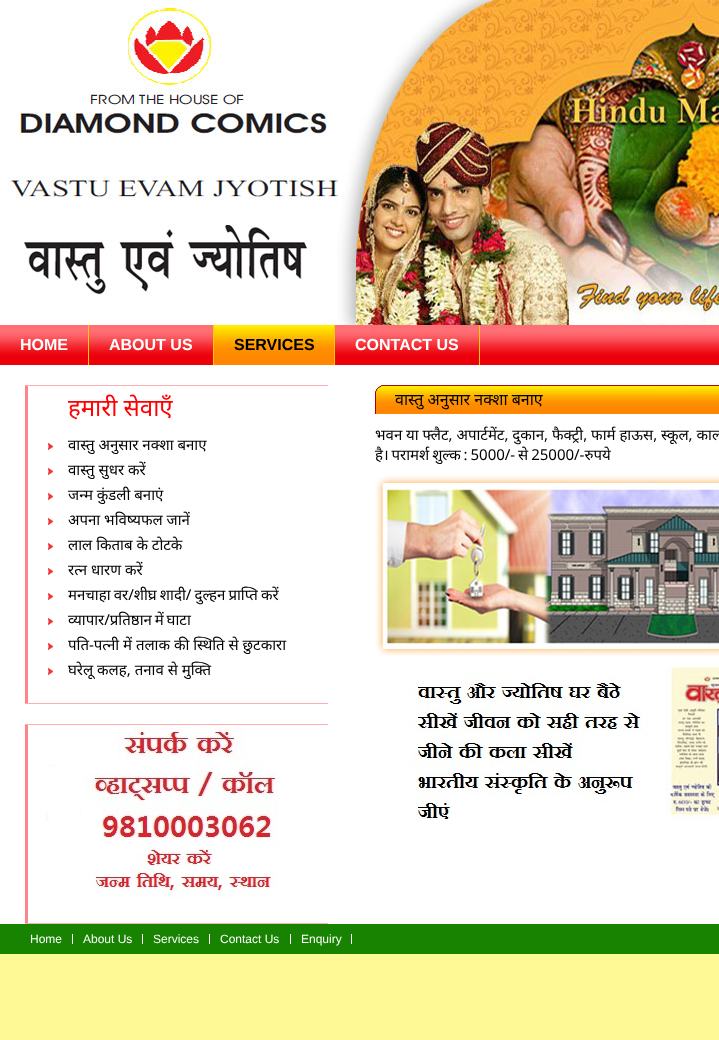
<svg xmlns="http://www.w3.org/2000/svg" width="719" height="1040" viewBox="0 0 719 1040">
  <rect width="100%" height="100%" fill="#fef995"/>
  <image x="0" y="0" width="341" height="8" href="img1.png"/>
  <image x="0" y="8" width="341" height="317" href="img2.png"/>
  <image x="341" y="0" width="378" height="325" href="img3.png"/>
  <image x="0" y="325" width="719" height="40" href="img4.png"/>
  <rect x="88" y="325" width="1" height="40" fill="#ffcc00"/>
  <text x="20" y="350" font-family="Liberation Sans" font-size="16" font-weight="bold" fill="#ffffff">HOME</text>
  <rect x="213" y="325" width="1" height="40" fill="#ffcc00"/>
  <text x="109" y="350" font-family="Liberation Sans" font-size="16" font-weight="bold" fill="#ffffff">ABOUT US</text>
  <rect x="334" y="325" width="1" height="40" fill="#ffcc00"/>
  <image x="214" y="325" width="120" height="40" href="img5.png"/>
  <text x="234" y="350" font-family="Liberation Sans" font-size="16" font-weight="bold" fill="#000000">SERVICES</text>
  <rect x="479" y="325" width="1" height="40" fill="#ffcc00"/>
  <text x="355" y="350" font-family="Liberation Sans" font-size="16" font-weight="bold" fill="#ffffff">CONTACT US</text>
  <rect x="0" y="365" width="719" height="559" fill="#ffffff"/>
  <path d="M25 385H328V386H28Z" fill="#ffadb0"/>
  <path d="M328 704H25L28 703H328Z" fill="#ffadb0"/>
  <path d="M25 704V385L28 386V703Z" fill="#ff8388"/>
  <text x="68" y="416" font-family="Noto Sans" font-size="24" fill="#ff0000">हमारी सेवाएँ</text>
  <image x="48" y="443" width="6" height="7" href="img6.png"/>
  <text x="68" y="450" font-family="Noto Sans" font-size="15" fill="#000000">वास्तु अनुसार नक्शा बनाए</text>
  <image x="48" y="468" width="6" height="7" href="img6.png"/>
  <text x="68" y="475" font-family="Noto Sans" font-size="15" fill="#000000">वास्तु सुधर करें</text>
  <image x="48" y="493" width="6" height="7" href="img6.png"/>
  <text x="68" y="500" font-family="Noto Sans" font-size="15" fill="#000000">जन्म कुंडली बनाएं</text>
  <image x="48" y="518" width="6" height="7" href="img6.png"/>
  <text x="68" y="525" font-family="Noto Sans" font-size="15" fill="#000000">अपना भविष्यफल जानें</text>
  <image x="48" y="543" width="6" height="7" href="img6.png"/>
  <text x="68" y="550" font-family="Noto Sans" font-size="15" fill="#000000">लाल किताब के टोटके</text>
  <image x="48" y="568" width="6" height="7" href="img6.png"/>
  <text x="68" y="575" font-family="Noto Sans" font-size="15" fill="#000000">रत्न धारण करें</text>
  <image x="48" y="593" width="6" height="7" href="img6.png"/>
  <text x="68" y="600" word-spacing="-0.75" font-family="Noto Sans" font-size="15" fill="#000000">मनचाहा वर/शीघ्र शादी/ दुल्हन प्राप्ति करें</text>
  <image x="48" y="618" width="6" height="7" href="img6.png"/>
  <text x="68" y="625" word-spacing="-1" font-family="Noto Sans" font-size="15" fill="#000000">व्यापार/प्रतिष्ठान में घाटा</text>
  <image x="48" y="643" width="6" height="7" href="img6.png"/>
  <text x="68" y="650" font-family="Noto Sans" font-size="15" fill="#000000">पति-पत्नी में तलाक की स्थिति से छुटकारा</text>
  <image x="48" y="668" width="6" height="7" href="img6.png"/>
  <text x="68" y="675" font-family="Noto Sans" font-size="15" fill="#000000">घरेलू कलह, तनाव से मुक्ति</text>
  <path d="M25 724H328V725H28Z" fill="#ffadb0"/>
  <path d="M328 924H25L28 923H328Z" fill="#ffadb0"/>
  <path d="M25 924V724L28 725V923Z" fill="#ff8388"/>
  <image x="46" y="725" width="232" height="175" href="img7.png"/>
  <image x="375" y="385" width="344" height="29" href="img8.png"/>
  <text x="395" y="405" font-family="Noto Sans" font-size="16" fill="#000000">वास्तु अनुसार नक्शा बनाए</text>
  <text x="375" y="440" font-family="Noto Sans" font-size="15" fill="#000000">भवन या फ्लैट, अपार्टमेंट, दुकान, फैक्ट्री, फार्म हाऊस, स्कूल, काल</text>
  <text x="375" y="460" word-spacing="-1" font-family="Noto Sans" font-size="15" fill="#000000">है। परामर्श शुल्क : 5000/- से 25000/-रुपये</text>
  <image x="375" y="475" width="344" height="182" href="img9.png"/>
  <image x="410" y="666" width="309" height="154" href="img10.png"/>
  <rect x="0" y="924" width="719" height="30" fill="#178300"/>
  <rect x="72" y="934" width="1" height="10" fill="#ffffff"/>
  <text x="30" y="943" font-family="Liberation Sans" font-size="12" fill="#ffffff">Home</text>
  <rect x="142" y="934" width="1" height="10" fill="#ffffff"/>
  <text x="83" y="943" font-family="Liberation Sans" font-size="12" fill="#ffffff">About Us</text>
  <rect x="209" y="934" width="1" height="10" fill="#ffffff"/>
  <text x="153" y="943" font-family="Liberation Sans" font-size="12" fill="#ffffff">Services</text>
  <rect x="290" y="934" width="1" height="10" fill="#ffffff"/>
  <text x="220" y="943" font-family="Liberation Sans" font-size="12" fill="#ffffff">Contact Us</text>
  <rect x="351" y="934" width="1" height="10" fill="#ffffff"/>
  <text x="301" y="943" font-family="Liberation Sans" font-size="12" fill="#ffffff">Enquiry</text>
</svg>
